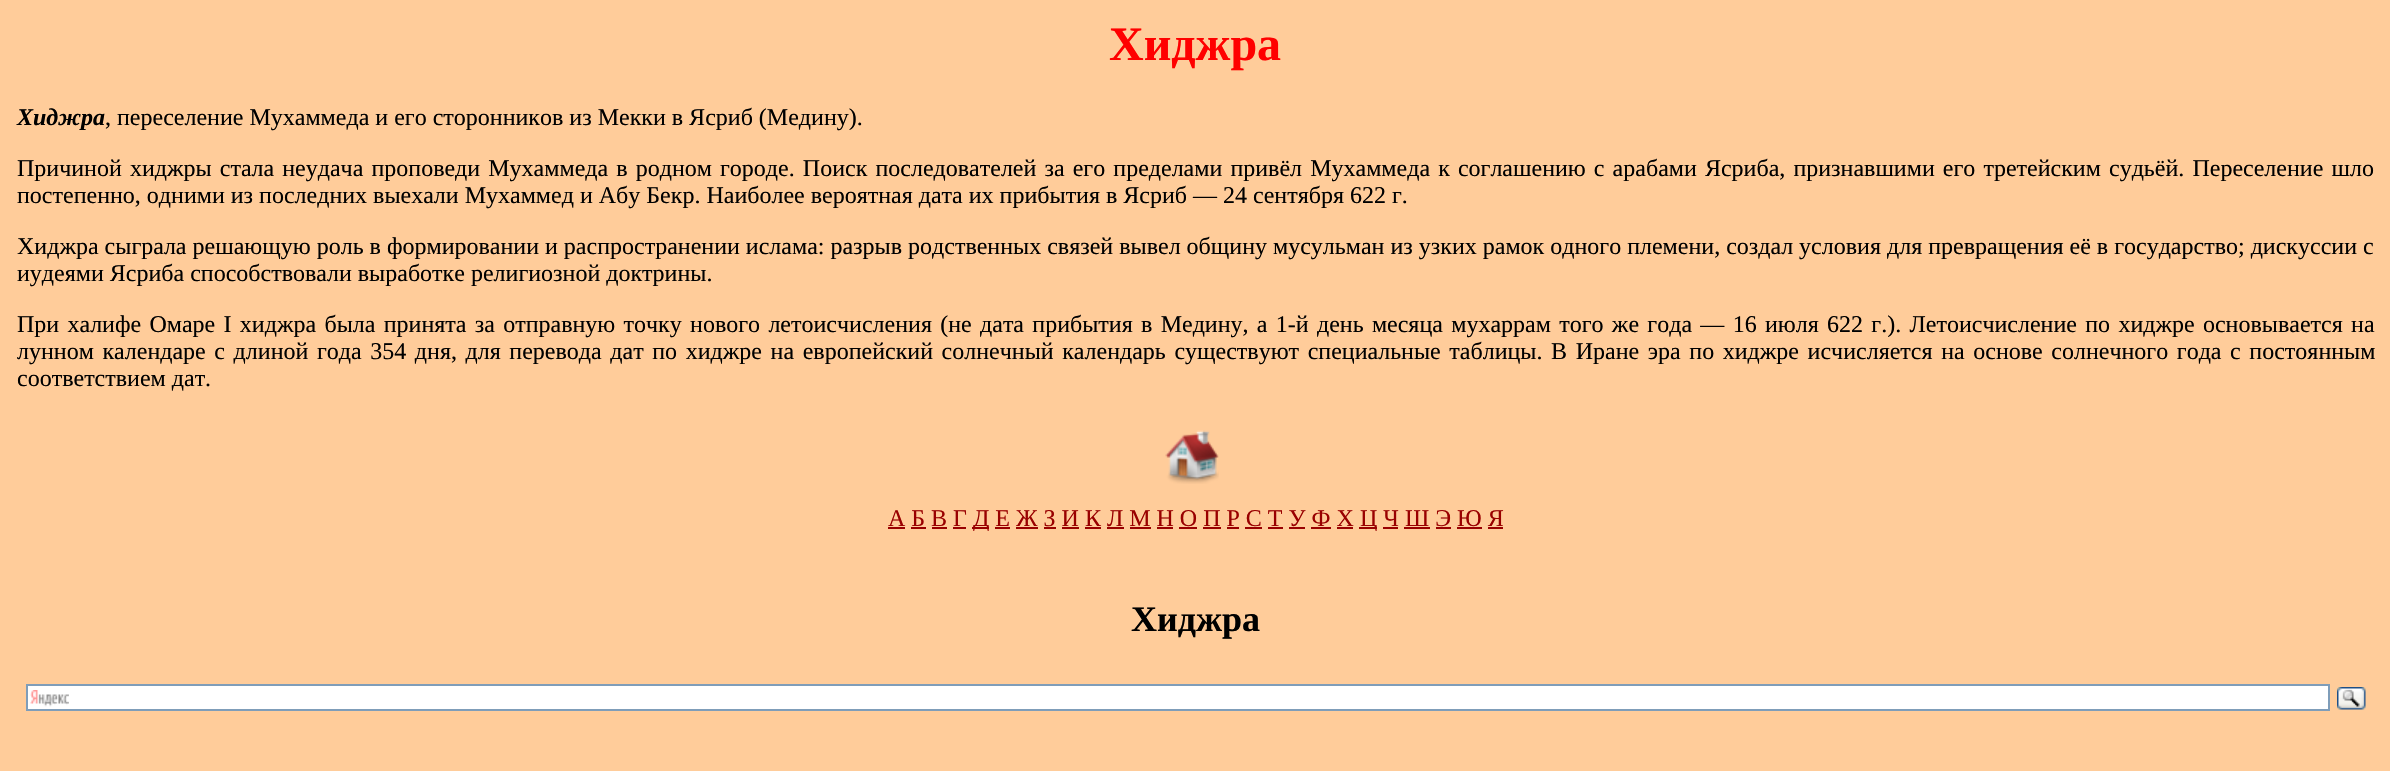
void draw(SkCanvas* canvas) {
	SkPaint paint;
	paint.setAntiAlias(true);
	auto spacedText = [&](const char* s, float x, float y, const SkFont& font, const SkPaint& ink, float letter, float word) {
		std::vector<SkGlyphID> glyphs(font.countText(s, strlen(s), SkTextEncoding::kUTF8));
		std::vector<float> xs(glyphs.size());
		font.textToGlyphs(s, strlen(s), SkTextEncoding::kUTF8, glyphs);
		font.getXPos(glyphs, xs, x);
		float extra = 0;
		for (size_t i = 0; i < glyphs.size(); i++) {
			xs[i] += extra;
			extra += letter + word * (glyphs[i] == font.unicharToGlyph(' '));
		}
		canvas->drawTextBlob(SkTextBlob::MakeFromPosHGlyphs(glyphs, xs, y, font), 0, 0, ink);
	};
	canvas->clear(0xffffcc9a);
	SkFont f1(fontMgr->matchFamilyStyle("Liberation Serif", SkFontStyle::Bold()), 48);
	f1.setSubpixel(true);
	paint.setColor(0xffff0000);
	canvas->drawString("Хиджра", 1109, 60, f1, paint);
	SkFont f2(fontMgr->matchFamilyStyle("Liberation Serif", SkFontStyle::BoldItalic()), 24);
	f2.setSubpixel(true);
	paint.setColor(0xff000000);
	canvas->drawString("Хиджра", 17, 125, f2, paint);
	SkFont f3(fontMgr->matchFamilyStyle("Liberation Serif", SkFontStyle::Normal()), 24);
	f3.setSubpixel(true);
	canvas->drawString(", переселение Мухаммеда и его сторонников из Мекки в Ясриб (Медину).", 105, 125, f3, paint);
	spacedText("Причиной хиджры стала неудача проповеди Мухаммеда в родном городе. Поиск последователей за его пределами привёл Мухаммеда к соглашению с арабами Ясриба, признавшими его третейским судьёй. Переселение шло", 17, 176, f3, paint, 0, 2.1);
	canvas->drawString("постепенно, одними из последних выехали Мухаммед и Абу Бекр. Наиболее вероятная дата их прибытия в Ясриб — 24 сентября 622 г.", 17, 203, f3, paint);
	canvas->drawString("Хиджра сыграла решающую роль в формировании и распространении ислама: разрыв родственных связей вывел общину мусульман из узких рамок одного племени, создал условия для превращения её в государство; дискуссии с", 17, 254, f3, paint);
	canvas->drawString("иудеями Ясриба способствовали выработке религиозной доктрины.", 17, 281, f3, paint);
	spacedText("При халифе Омаре I хиджра была принята за отправную точку нового летоисчисления (не дата прибытия в Медину, а 1-й день месяца мухаррам того же года — 16 июля 622 г.). Летоисчисление по хиджре основывается на", 17, 332, f3, paint, 0, 2.3);
	spacedText("лунном календаре с длиной года 354 дня, для перевода дат по хиджре на европейский солнечный календарь существуют специальные таблицы. В Иране эра по хиджре исчисляется на основе солнечного года с постоянным", 17, 359, f3, paint, 0, 2.6);
	canvas->drawString("соответствием дат.", 17, 386, f3, paint);
	canvas->drawImageRect(SkImages::DeferredFromEncodedData(SkData::MakeFromFileName("img1.png")), SkRect::MakeXYWH(1165, 430, 54, 54), SkSamplingOptions());
	paint.setColor(0xff990000);
	canvas->drawString("А Б В Г", 888, 526, f3, paint);
	canvas->drawRect(SkRect::MakeXYWH(888, 527, 17, 2), paint);
	canvas->drawRect(SkRect::MakeXYWH(972, 527, 17, 2), paint);
	canvas->drawString("Д Е Ж З И К Л М Н О П Р С Т У Ф Х", 973, 526, f3, paint);
	canvas->drawRect(SkRect::MakeXYWH(1359, 527, 18, 2), paint);
	canvas->drawString("Ц Ч Ш Э Ю Я", 1360, 526, f3, paint);
	canvas->drawRect(SkRect::MakeXYWH(911, 527, 15, 2), paint);
	canvas->drawRect(SkRect::MakeXYWH(932, 527, 15, 2), paint);
	canvas->drawRect(SkRect::MakeXYWH(953, 527, 13, 2), paint);
	canvas->drawRect(SkRect::MakeXYWH(995, 527, 15, 2), paint);
	canvas->drawRect(SkRect::MakeXYWH(1016, 527, 22, 2), paint);
	canvas->drawRect(SkRect::MakeXYWH(1044, 527, 12, 2), paint);
	canvas->drawRect(SkRect::MakeXYWH(1062, 527, 17, 2), paint);
	canvas->drawRect(SkRect::MakeXYWH(1085, 527, 16, 2), paint);
	canvas->drawRect(SkRect::MakeXYWH(1107, 527, 17, 2), paint);
	canvas->drawRect(SkRect::MakeXYWH(1130, 527, 21, 2), paint);
	canvas->drawRect(SkRect::MakeXYWH(1157, 527, 16, 2), paint);
	canvas->drawRect(SkRect::MakeXYWH(1179, 527, 18, 2), paint);
	canvas->drawRect(SkRect::MakeXYWH(1203, 527, 18, 2), paint);
	canvas->drawRect(SkRect::MakeXYWH(1227, 527, 12, 2), paint);
	canvas->drawRect(SkRect::MakeXYWH(1245, 527, 17, 2), paint);
	canvas->drawRect(SkRect::MakeXYWH(1268, 527, 15, 2), paint);
	canvas->drawRect(SkRect::MakeXYWH(1289, 527, 16, 2), paint);
	canvas->drawRect(SkRect::MakeXYWH(1311, 527, 20, 2), paint);
	canvas->drawRect(SkRect::MakeXYWH(1337, 527, 16, 2), paint);
	canvas->drawRect(SkRect::MakeXYWH(1383, 527, 15, 2), paint);
	canvas->drawRect(SkRect::MakeXYWH(1404, 527, 26, 2), paint);
	canvas->drawRect(SkRect::MakeXYWH(1436, 527, 15, 2), paint);
	canvas->drawRect(SkRect::MakeXYWH(1457, 527, 25, 2), paint);
	canvas->drawRect(SkRect::MakeXYWH(1488, 527, 15, 2), paint);
	SkFont f4(fontMgr->matchFamilyStyle("Liberation Serif", SkFontStyle::Bold()), 36);
	f4.setSubpixel(true);
	paint.setColor(0xff000000);
	canvas->drawString("Хиджра", 1131, 631, f4, paint);
	paint.setColor(0xffffffff);
	canvas->drawRect(SkRect::MakeXYWH(28, 686, 2300, 23), paint);
	canvas->drawImageRect(SkImages::DeferredFromEncodedData(SkData::MakeFromFileName("img2.png")), SkRect::MakeXYWH(30, 690, 39, 17), SkSamplingOptions());
	paint.setStroke(true);
	paint.setStrokeWidth(2);
	paint.setColor(0xff7f9db9);
	canvas->drawRect(SkRect::MakeXYWH(27, 685, 2302, 25), paint);
	canvas->drawImageRect(SkImages::DeferredFromEncodedData(SkData::MakeFromFileName("img3.png")), SkRect::MakeXYWH(2337, 687, 29, 23), SkSamplingOptions());
}
